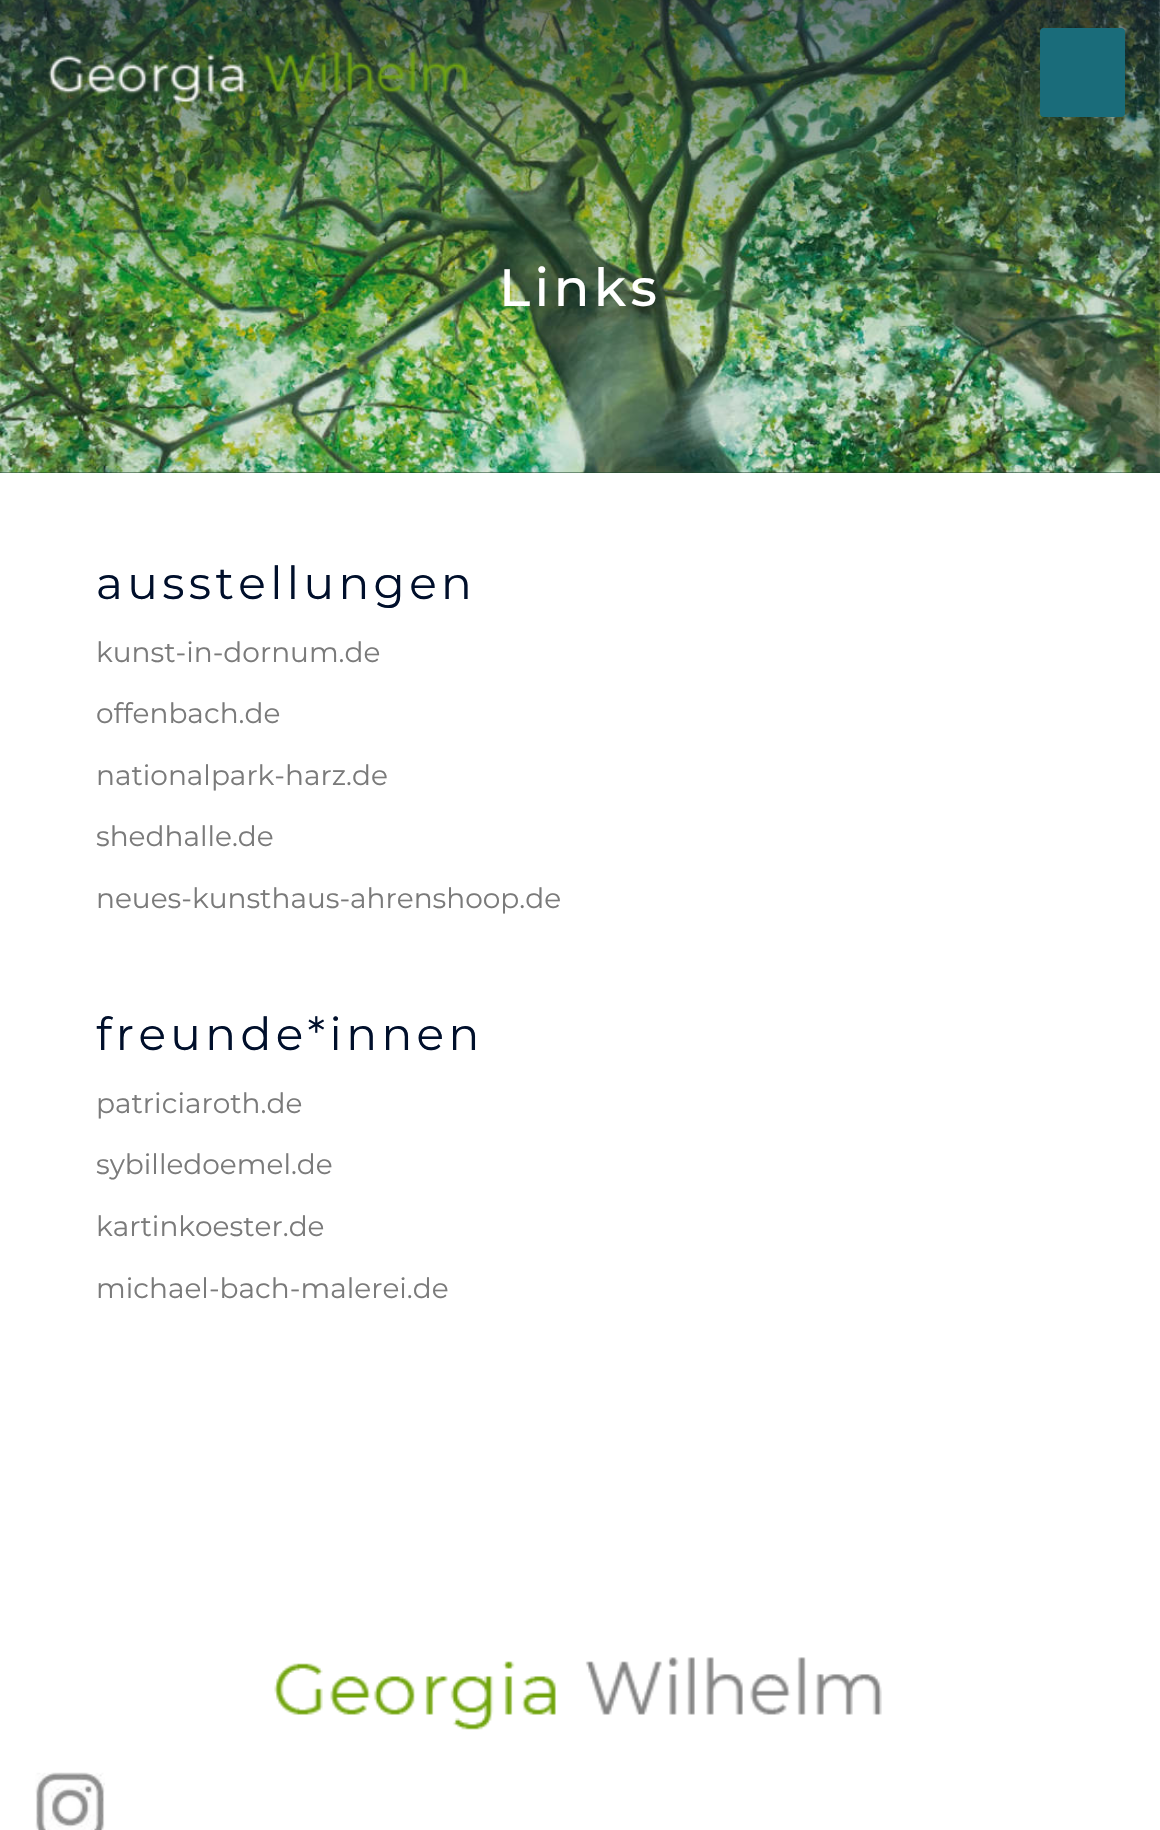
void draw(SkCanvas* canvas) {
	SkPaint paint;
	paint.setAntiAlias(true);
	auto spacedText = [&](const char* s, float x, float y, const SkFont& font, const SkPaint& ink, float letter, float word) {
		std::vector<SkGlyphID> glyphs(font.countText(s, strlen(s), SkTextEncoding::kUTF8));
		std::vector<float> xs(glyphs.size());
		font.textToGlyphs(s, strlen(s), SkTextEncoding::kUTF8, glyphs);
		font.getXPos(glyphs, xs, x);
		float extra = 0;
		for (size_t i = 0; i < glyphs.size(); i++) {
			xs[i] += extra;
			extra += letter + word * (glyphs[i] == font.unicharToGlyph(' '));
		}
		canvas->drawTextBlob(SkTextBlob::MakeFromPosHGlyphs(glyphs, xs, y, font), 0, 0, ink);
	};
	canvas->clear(0xffffffff);
	paint.setColor(0xff1d3c2d);
	canvas->drawRect(SkRect::MakeXYWH(0, 472, 1160, 1), paint);
	canvas->drawImageRect(SkImages::DeferredFromEncodedData(SkData::MakeFromFileName("img2.png")), SkRect::MakeXYWH(0, 0, 1160, 473), SkSamplingOptions());
	{
		const SkColor colors[] = {0x990f232f, 0x211a7a1a};
		const float stops[] = {0, 0.74};
		const SkPoint ends[] = {{580, 0}, {580, 473}};
		paint.setShader(SkGradientShader::MakeLinear(ends, colors, stops, 2, SkTileMode::kClamp));
		paint.setAlpha(255);
	}
	canvas->drawRect(SkRect::MakeXYWH(0, 0, 1160, 473), paint);
	canvas->drawImageRect(SkImages::DeferredFromEncodedData(SkData::MakeFromFileName("img1.png")), SkRect::MakeXYWH(48, 51, 421, 52), SkSamplingOptions());
	paint.setShader(nullptr);
	paint.setColor(0xff1a6c7a);
	canvas->drawRoundRect(SkRect::MakeXYWH(1042, 30, 81, 85), 2, 2, paint);
	paint.setStroke(true);
	paint.setStrokeWidth(4);
	canvas->drawRoundRect(SkRect::MakeXYWH(1042, 30, 81, 85), 2, 2, paint);
	SkFont f1(fontMgr->matchFamilyStyle("Montserrat", SkFontStyle(500, SkFontStyle::kNormal_Width, SkFontStyle::kUpright_Slant)), 52.5);
	f1.setSubpixel(true);
	paint.setStroke(false);
	paint.setColor(0xffffffff);
	spacedText("Links", 499, 306, f1, paint, 4.4, 0);
	SkFont f2(fontMgr->matchFamilyStyle("Montserrat", SkFontStyle::Normal()), 45.5);
	f2.setSubpixel(true);
	paint.setColor(0xff000f2b);
	spacedText("ausstellungen", 96, 599, f2, paint, 4.4, 0);
	SkFont f3(fontMgr->matchFamilyStyle("Montserrat", SkFontStyle::Normal()), 28);
	f3.setSubpixel(true);
	paint.setColor(0xff7a7a7a);
	canvas->drawString("kunst-in-dornum.de", 96, 662, f3, paint);
	canvas->drawString("offenbach.de", 96, 723, f3, paint);
	canvas->drawString("nationalpark-harz.de", 96, 785, f3, paint);
	canvas->drawString("shedhalle.de", 96, 846, f3, paint);
	canvas->drawString("neues-kunsthaus-ahrenshoop.de", 96, 908, f3, paint);
	paint.setColor(0xff000f2b);
	spacedText("freunde*innen", 96, 1050, f2, paint, 4.4, 0);
	paint.setColor(0xff7a7a7a);
	canvas->drawString("patriciaroth.de", 96, 1113, f3, paint);
	canvas->drawString("sybilledoemel.de", 96, 1174, f3, paint);
	canvas->drawString("kartinkoester.de", 96, 1236, f3, paint);
	canvas->drawString("michael-bach-malerei.de", 96, 1298, f3, paint);
	canvas->drawImageRect(SkImages::DeferredFromEncodedData(SkData::MakeFromFileName("img3.png")), SkRect::MakeXYWH(274, 1657, 608, 73), SkSamplingOptions());
	canvas->drawImageRect(SkImages::DeferredFromEncodedData(SkData::MakeFromFileName("img4.png")), SkRect::MakeXYWH(35, 1772, 70, 58), SkSamplingOptions());
}
